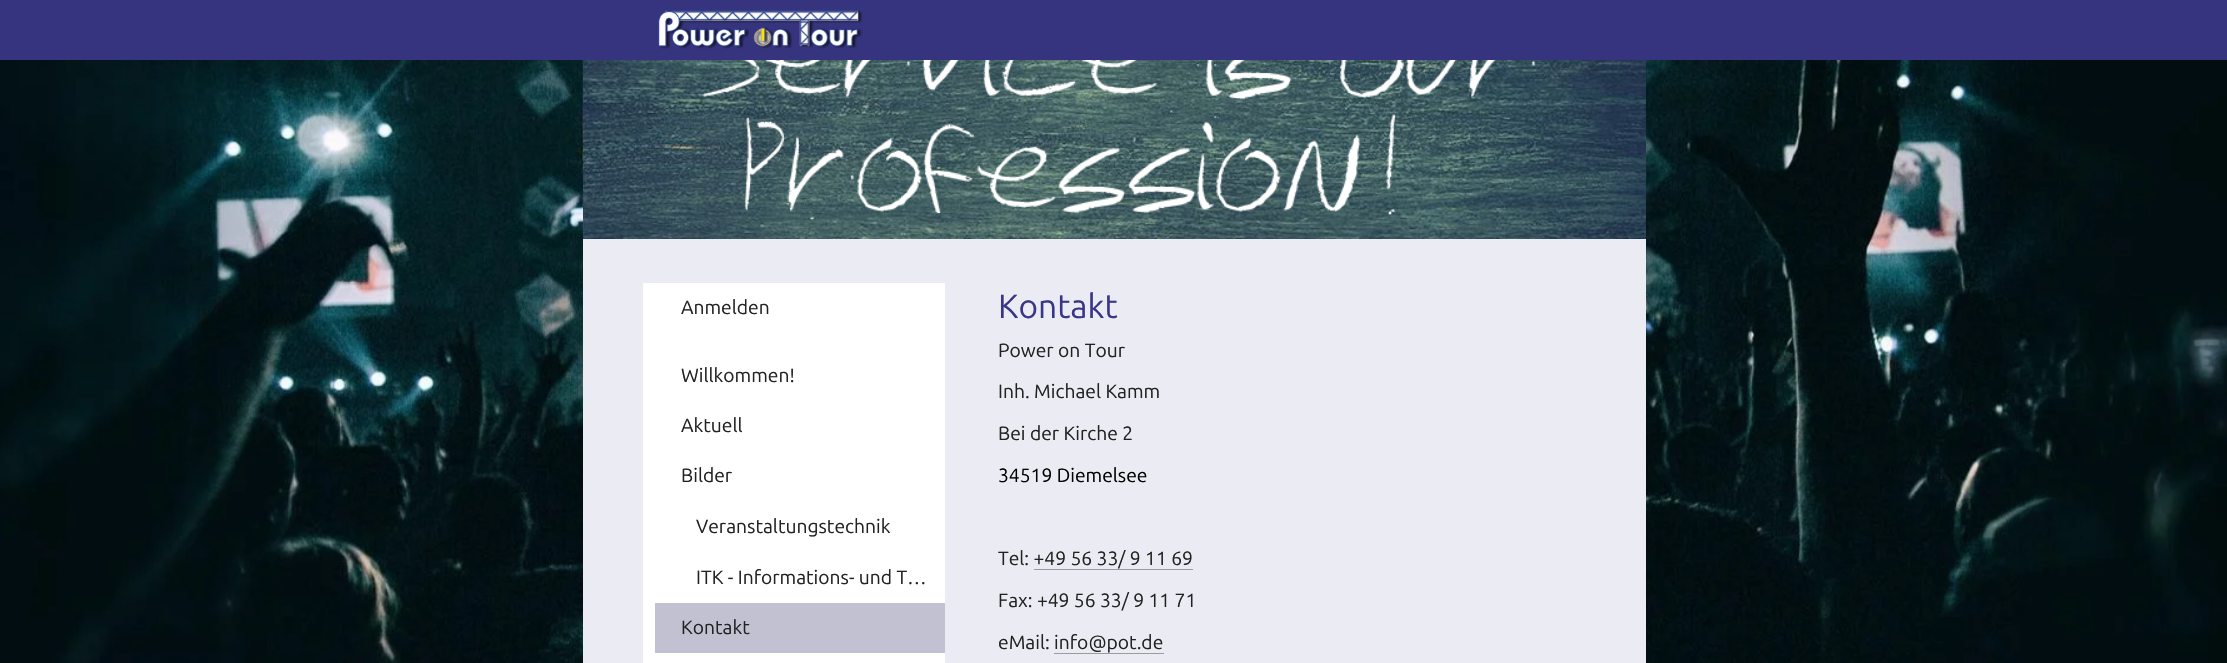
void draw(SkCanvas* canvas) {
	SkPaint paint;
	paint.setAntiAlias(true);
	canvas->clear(0xffffffff);
	canvas->drawImageRect(SkImages::DeferredFromEncodedData(SkData::MakeFromFileName("img1.png")), SkRect::MakeXYWH(0, 60, 2227, 603), SkSamplingOptions());
	paint.setColor(0xff37347f);
	canvas->drawRect(SkRect::MakeXYWH(0, 0, 2227, 60), paint);
	canvas->drawImageRect(SkImages::DeferredFromEncodedData(SkData::MakeFromFileName("img2.png")), SkRect::MakeXYWH(658, 10, 205, 39), SkSamplingOptions());
	canvas->drawImageRect(SkImages::DeferredFromEncodedData(SkData::MakeFromFileName("img3.png")), SkRect::MakeXYWH(583, 60, 1063, 179), SkSamplingOptions());
	canvas->drawImageRect(SkImages::DeferredFromEncodedData(SkData::MakeFromFileName("img4.png")), SkRect::MakeXYWH(702, 60, 834, 155), SkSamplingOptions());
	paint.setColor(0xffebebf3);
	canvas->drawRect(SkRect::MakeXYWH(583, 239, 1063, 424), paint);
	paint.setColor(0xffffffff);
	canvas->drawRect(SkRect::MakeXYWH(643, 283, 302, 380), paint);
	SkFont f1(fontMgr->matchFamilyStyle("Ubuntu", SkFontStyle::Normal()), 19.25);
	f1.setSubpixel(true);
	paint.setColor(0xff222222);
	canvas->drawString("Anmelden", 681, 314, f1, paint);
	canvas->drawString("Willkommen!", 681, 382, f1, paint);
	canvas->drawString("Aktuell", 681, 432, f1, paint);
	canvas->drawString("Bilder", 681, 482, f1, paint);
	canvas->drawString("Veranstaltungstechnik", 696, 533, f1, paint);
	canvas->drawString("ITK - Informations- und T…", 696, 584, f1, paint);
	paint.setColor(0xffc2c1d2);
	canvas->drawRect(SkRect::MakeXYWH(655, 603, 290, 50), paint);
	paint.setColor(0xff222222);
	canvas->drawString("Kontakt", 681, 634, f1, paint);
	SkFont f2(fontMgr->matchFamilyStyle("Ubuntu", SkFontStyle::Normal()), 33.5);
	f2.setSubpixel(true);
	paint.setColor(0xff393689);
	canvas->drawString("Kontakt", 998, 318, f2, paint);
	paint.setColor(0xff222222);
	canvas->drawString("Power on Tour", 998, 357, f1, paint);
	canvas->drawString("Inh. Michael Kamm", 998, 398, f1, paint);
	canvas->drawString("Bei der Kirche 2", 998, 440, f1, paint);
	paint.setColor(0xff000000);
	canvas->drawString("34519 Diemelsee", 998, 482, f1, paint);
	paint.setColor(0xff222222);
	canvas->drawString("Tel: +49 56 33/ 9 11 69", 998, 565, f1, paint);
	paint.setColor(0xff9b9b9f);
	canvas->drawRect(SkRect::MakeXYWH(1034, 569, 159, 1), paint);
	paint.setColor(0xff222222);
	canvas->drawString("Fax: +49 56 33/ 9 11 71", 998, 607, f1, paint);
	canvas->drawString("eMail: info@pot.de", 998, 649, f1, paint);
	paint.setColor(0xff9b9b9f);
	canvas->drawRect(SkRect::MakeXYWH(1054, 653, 110, 1), paint);
}
